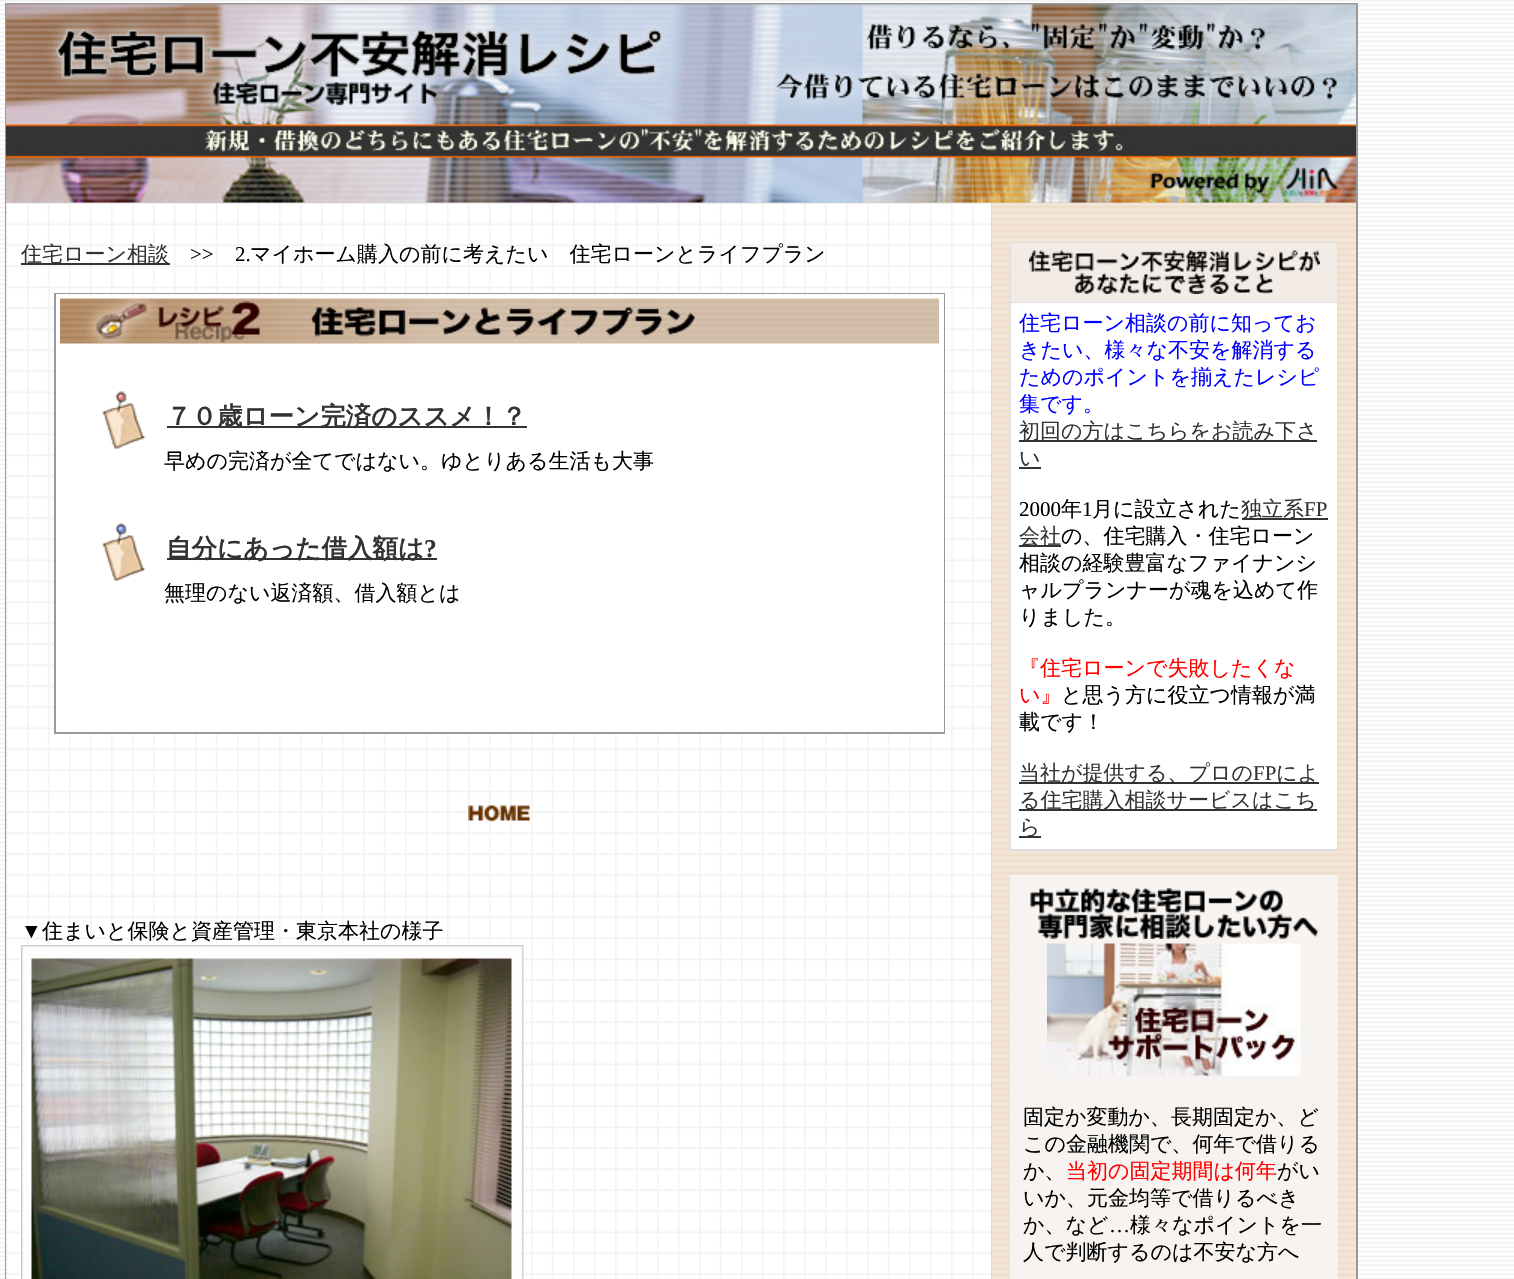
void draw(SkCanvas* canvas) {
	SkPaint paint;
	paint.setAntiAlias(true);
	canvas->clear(0xffffffff);
	canvas->drawImageRect(SkImages::DeferredFromEncodedData(SkData::MakeFromFileName("img1.png")), SkRect::MakeXYWH(0, 0, 1514, 1279), SkSamplingOptions());
	paint.setColor(0xff999999);
	canvas->drawRect(SkRect::MakeXYWH(5, 3, 1353, 1276), paint);
	canvas->drawImageRect(SkImages::DeferredFromEncodedData(SkData::MakeFromFileName("img3.png")), SkRect::MakeXYWH(6, 202, 986, 1077), SkSamplingOptions());
	canvas->drawImageRect(SkImages::DeferredFromEncodedData(SkData::MakeFromFileName("img9.png")), SkRect::MakeXYWH(991, 202, 365, 1077), SkSamplingOptions());
	canvas->drawImageRect(SkImages::DeferredFromEncodedData(SkData::MakeFromFileName("img2.png")), SkRect::MakeXYWH(6, 4, 1350, 199), SkSamplingOptions());
	paint.setColor(0xff333333);
	canvas->drawRect(SkRect::MakeXYWH(21, 263, 149, 2), paint);
	SkFont f1(fontMgr->matchFamilyStyle("WenQuanYi Zen Hei", SkFontStyle(500, SkFontStyle::kNormal_Width, SkFontStyle::kUpright_Slant)), 21);
	f1.setSubpixel(true);
	canvas->drawString("住宅ローン相談", 21, 261, f1, paint);
	SkFont f2(fontMgr->matchFamilyStyle("Liberation Serif", SkFontStyle::Normal()), 21);
	f2.setSubpixel(true);
	paint.setColor(0xff000000);
	canvas->drawString(">>", 190, 261, f2, paint);
	canvas->drawString("2.", 235, 261, f2, paint);
	canvas->drawString("マイホーム購入の前に考えたい　住宅ローンとライフプラン", 250, 261, f1, paint);
	paint.setColor(0xff999999);
	canvas->drawRect(SkRect::MakeXYWH(54, 293, 891, 441), paint);
	paint.setColor(0xffffffff);
	canvas->drawRect(SkRect::MakeXYWH(56, 294, 888, 438), paint);
	canvas->drawImageRect(SkImages::DeferredFromEncodedData(SkData::MakeFromFileName("img4.png")), SkRect::MakeXYWH(60, 298, 879, 46), SkSamplingOptions());
	canvas->drawImageRect(SkImages::DeferredFromEncodedData(SkData::MakeFromFileName("img5.png")), SkRect::MakeXYWH(102, 391, 44, 58), SkSamplingOptions());
	paint.setColor(0xff333333);
	canvas->drawRect(SkRect::MakeXYWH(167, 426, 360, 2), paint);
	SkFont f3(fontMgr->matchFamilyStyle("WenQuanYi Zen Hei", SkFontStyle::Bold()), 25.5);
	f3.setSubpixel(true);
	canvas->drawString("７０歳ローン完済のススメ！？", 166, 425, f3, paint);
	paint.setColor(0xff000000);
	canvas->drawString("早めの完済が全てではない。ゆとりある生活も大事", 164, 468, f1, paint);
	canvas->drawImageRect(SkImages::DeferredFromEncodedData(SkData::MakeFromFileName("img6.png")), SkRect::MakeXYWH(102, 523, 44, 58), SkSamplingOptions());
	paint.setColor(0xff333333);
	canvas->drawRect(SkRect::MakeXYWH(167, 558, 270, 2), paint);
	canvas->drawString("自分にあった借入額は", 166, 557, f3, paint);
	SkFont f4(fontMgr->matchFamilyStyle("Liberation Serif", SkFontStyle::Bold()), 25.5);
	f4.setSubpixel(true);
	canvas->drawString("?", 424, 557, f4, paint);
	paint.setColor(0xff000000);
	canvas->drawString("無理のない返済額、借入額とは", 164, 600, f1, paint);
	canvas->drawImageRect(SkImages::DeferredFromEncodedData(SkData::MakeFromFileName("img7.png")), SkRect::MakeXYWH(468, 805, 62, 17), SkSamplingOptions());
	canvas->drawString("▼", 21, 938, f2, paint);
	canvas->drawString("住まいと保険と資産管理・東京本社の様子", 42, 938, f1, paint);
	canvas->drawImageRect(SkImages::DeferredFromEncodedData(SkData::MakeFromFileName("img8.png")), SkRect::MakeXYWH(21, 945, 503, 334), SkSamplingOptions());
	paint.setColor(0xffe0dfe3);
	canvas->drawRect(SkRect::MakeXYWH(1010, 242, 328, 609), paint);
	paint.setColor(0xfff2ebe6);
	canvas->drawRect(SkRect::MakeXYWH(1011, 243, 326, 59), paint);
	canvas->drawImageRect(SkImages::DeferredFromEncodedData(SkData::MakeFromFileName("img10.png")), SkRect::MakeXYWH(1029, 250, 291, 44), SkSamplingOptions());
	paint.setColor(0xffffffff);
	canvas->drawRect(SkRect::MakeXYWH(1011, 303, 326, 546), paint);
	paint.setColor(0xff0000ff);
	canvas->drawString("住宅ローン相談の前に知ってお", 1019, 330, f1, paint);
	canvas->drawString("きたい、様々な不安を解消する", 1019, 357, f1, paint);
	canvas->drawString("ためのポイントを揃えたレシピ", 1019, 384, f1, paint);
	canvas->drawString("集です。", 1019, 411, f1, paint);
	paint.setColor(0xff333333);
	canvas->drawRect(SkRect::MakeXYWH(1019, 440, 298, 2), paint);
	canvas->drawString("初回の方はこちらをお読み下さ", 1019, 438, f1, paint);
	canvas->drawString("い", 1019, 465, f1, paint);
	canvas->drawRect(SkRect::MakeXYWH(1019, 467, 22, 2), paint);
	paint.setColor(0xff000000);
	canvas->drawString("2000", 1019, 516, f2, paint);
	canvas->drawString("年", 1061, 516, f1, paint);
	canvas->drawString("1", 1082, 516, f2, paint);
	canvas->drawString("月に設立された", 1092, 516, f1, paint);
	paint.setColor(0xff333333);
	canvas->drawRect(SkRect::MakeXYWH(1242, 518, 86, 2), paint);
	canvas->drawString("独立系", 1241, 516, f1, paint);
	canvas->drawString("FP", 1304, 516, f2, paint);
	canvas->drawRect(SkRect::MakeXYWH(1019, 545, 42, 2), paint);
	canvas->drawString("会社", 1019, 543, f1, paint);
	paint.setColor(0xff000000);
	canvas->drawString("の、住宅購入・住宅ローン", 1061, 543, f1, paint);
	canvas->drawString("相談の経験豊富なファイナンシ", 1019, 570, f1, paint);
	canvas->drawString("ャルプランナーが魂を込めて作", 1019, 597, f1, paint);
	canvas->drawString("りました。", 1019, 624, f1, paint);
	paint.setColor(0xffff0000);
	canvas->drawString("『住宅ローンで失敗したくな", 1019, 675, f1, paint);
	canvas->drawString("い』", 1019, 702, f1, paint);
	paint.setColor(0xff000000);
	canvas->drawString("と思う方に役立つ情報が満", 1061, 702, f1, paint);
	canvas->drawString("載です！", 1019, 729, f1, paint);
	paint.setColor(0xff333333);
	canvas->drawRect(SkRect::MakeXYWH(1019, 782, 300, 2), paint);
	canvas->drawString("当社が提供する、プロの", 1019, 780, f1, paint);
	canvas->drawString("FP", 1253, 780, f2, paint);
	canvas->drawString("によ", 1276, 780, f1, paint);
	canvas->drawRect(SkRect::MakeXYWH(1019, 809, 298, 2), paint);
	canvas->drawString("る住宅購入相談サービスはこち", 1019, 807, f1, paint);
	canvas->drawRect(SkRect::MakeXYWH(1019, 836, 22, 2), paint);
	canvas->drawString("ら", 1019, 834, f1, paint);
	paint.setColor(0xfff7f3f0);
	canvas->drawRect(SkRect::MakeXYWH(1010, 875, 328, 404), paint);
	canvas->drawImageRect(SkImages::DeferredFromEncodedData(SkData::MakeFromFileName("img11.png")), SkRect::MakeXYWH(1030, 888, 289, 51), SkSamplingOptions());
	canvas->drawImageRect(SkImages::DeferredFromEncodedData(SkData::MakeFromFileName("img12.png")), SkRect::MakeXYWH(1047, 943, 254, 133), SkSamplingOptions());
	paint.setColor(0xff000000);
	canvas->drawString("固定か変動か、長期固定か、ど", 1023, 1124, f1, paint);
	canvas->drawString("この金融機関で、何年で借りる", 1023, 1151, f1, paint);
	canvas->drawString("か、", 1023, 1178, f1, paint);
	paint.setColor(0xffff0000);
	canvas->drawString("当初の固定期間は何年", 1066, 1178, f1, paint);
	paint.setColor(0xff000000);
	canvas->drawString("がい", 1277, 1178, f1, paint);
	canvas->drawString("いか、元金均等で借りるべき", 1023, 1205, f1, paint);
	canvas->drawString("か、など", 1023, 1232, f1, paint);
	canvas->drawString("…", 1109, 1232, f2, paint);
	canvas->drawString("様々なポイントを一", 1130, 1232, f1, paint);
	canvas->drawString("人で判断するのは不安な方へ", 1023, 1259, f1, paint);
}
